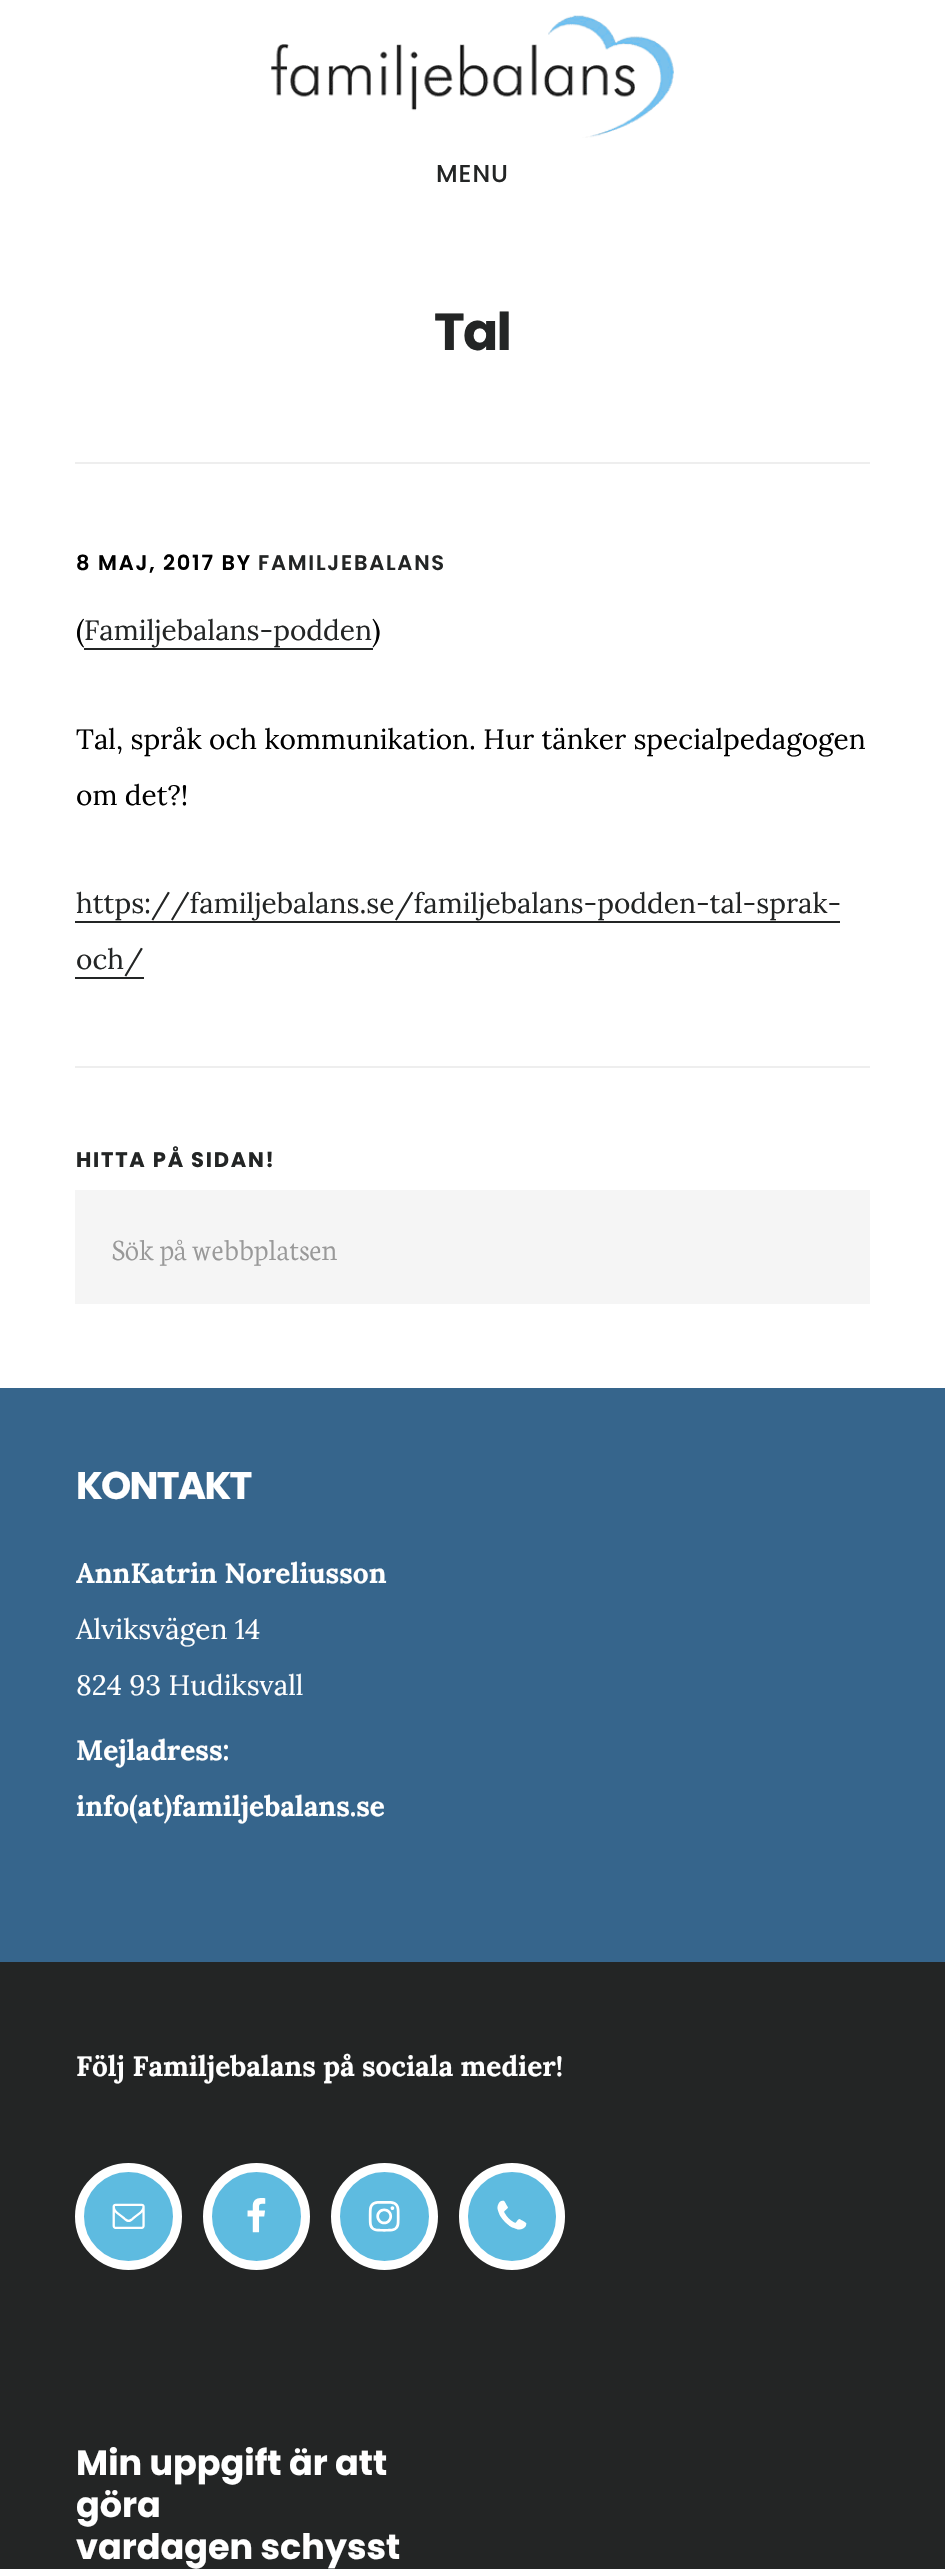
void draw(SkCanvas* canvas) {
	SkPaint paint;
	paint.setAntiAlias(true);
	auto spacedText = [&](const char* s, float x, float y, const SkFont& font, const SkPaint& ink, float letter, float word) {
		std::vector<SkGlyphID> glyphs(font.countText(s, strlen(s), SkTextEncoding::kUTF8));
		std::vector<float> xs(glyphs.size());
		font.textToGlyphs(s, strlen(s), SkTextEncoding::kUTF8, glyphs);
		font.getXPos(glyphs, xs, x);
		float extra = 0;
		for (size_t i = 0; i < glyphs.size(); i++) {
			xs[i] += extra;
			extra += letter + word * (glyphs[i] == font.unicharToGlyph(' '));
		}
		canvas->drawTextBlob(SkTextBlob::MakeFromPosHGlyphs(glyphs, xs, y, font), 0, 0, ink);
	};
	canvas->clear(0xffffffff);
	canvas->drawImageRect(SkImages::DeferredFromEncodedData(SkData::MakeFromFileName("img1.png")), SkRect::MakeXYWH(271, 15, 403, 123), SkSamplingOptions());
	SkFont f1(fontMgr->matchFamilyStyle("Poppins", SkFontStyle(500, SkFontStyle::kNormal_Width, SkFontStyle::kUpright_Slant)), 24.5);
	f1.setSubpixel(true);
	paint.setColor(0xff232525);
	spacedText("MENU", 436, 182, f1, paint, 1, 0);
	paint.setColor(0xffeeeeee);
	canvas->drawRect(SkRect::MakeXYWH(75, 462, 795, 2), paint);
	SkFont f2(fontMgr->matchFamilyStyle("Poppins", SkFontStyle::Bold()), 52);
	f2.setSubpixel(true);
	paint.setColor(0xff232525);
	spacedText("Tal", 434, 350, f2, paint, -1.75, 0);
	paint.setColor(0xffeeeeee);
	canvas->drawRect(SkRect::MakeXYWH(75, 1066, 795, 2), paint);
	SkFont f3(fontMgr->matchFamilyStyle("Poppins", SkFontStyle(600, SkFontStyle::kNormal_Width, SkFontStyle::kUpright_Slant)), 21);
	f3.setSubpixel(true);
	paint.setColor(0xff000000);
	spacedText("8 MAJ, 2017 BY", 76, 570, f3, paint, 1.75, 0);
	paint.setColor(0xff232525);
	spacedText("FAMILJEBALANS", 258, 570, f3, paint, 1.75, 0);
	SkFont f4(fontMgr->matchFamilyStyle("Lora", SkFontStyle::Normal()), 28);
	f4.setSubpixel(true);
	paint.setColor(0xff000000);
	canvas->drawString("(", 76, 640, f4, paint);
	paint.setColor(0xff232525);
	canvas->drawString("Familjebalans-podden", 84, 640, f4, paint);
	canvas->drawRect(SkRect::MakeXYWH(84, 648, 289, 2), paint);
	paint.setColor(0xff000000);
	canvas->drawString(")", 372, 640, f4, paint);
	canvas->drawString("Tal, språk och kommunikation. Hur tänker specialpedagogen", 76, 749, f4, paint);
	canvas->drawString("om det?!", 76, 805, f4, paint);
	paint.setColor(0xff232525);
	canvas->drawString("https://familjebalans.se/familjebalans-podden-tal-sprak-", 76, 913, f4, paint);
	canvas->drawRect(SkRect::MakeXYWH(75, 921, 765, 2), paint);
	canvas->drawString("och/", 76, 969, f4, paint);
	canvas->drawRect(SkRect::MakeXYWH(75, 977, 69, 2), paint);
	SkFont f5(fontMgr->matchFamilyStyle("Poppins", SkFontStyle::Bold()), 21);
	f5.setSubpixel(true);
	spacedText("HITTA PÅ SIDAN!", 76, 1167, f5, paint, 1.75, 0);
	paint.setColor(0xfff5f5f5);
	canvas->drawRect(SkRect::MakeXYWH(75, 1190, 795, 114), paint);
	SkFont f6(fontMgr->matchFamilyStyle("Neuton", SkFontStyle(300, SkFontStyle::kNormal_Width, SkFontStyle::kUpright_Slant)), 31.5);
	f6.setSubpixel(true);
	paint.setColor(0xff999999);
	canvas->drawString("Sök på webbplatsen", 112, 1260, f6, paint);
	paint.setColor(0xff232525);
	canvas->drawRect(SkRect::MakeXYWH(0, 1962, 945, 607), paint);
	paint.setColor(0xff36658c);
	canvas->drawRect(SkRect::MakeXYWH(0, 1388, 945, 574), paint);
	SkFont f7(fontMgr->matchFamilyStyle("Poppins", SkFontStyle::Bold()), 38.5);
	f7.setSubpixel(true);
	paint.setColor(0xffffffff);
	spacedText("KONTAKT", 76, 1499, f7, paint, -1.75, 0);
	SkFont f8(fontMgr->matchFamilyStyle("Lora", SkFontStyle::Bold()), 28);
	f8.setSubpixel(true);
	canvas->drawString("AnnKatrin Noreliusson", 76, 1583, f8, paint);
	canvas->drawString("Alviksvägen 14", 76, 1639, f4, paint);
	canvas->drawString("824 93 Hudiksvall", 76, 1695, f4, paint);
	canvas->drawString("Mejladress:", 76, 1760, f8, paint);
	canvas->drawString("info(at)familjebalans.se", 76, 1816, f8, paint);
	canvas->drawString("Följ Familjebalans på sociala medier!", 76, 2076, f8, paint);
	paint.setColor(0xff5ebbe0);
	canvas->drawCircle(128.5, 2216.5, 49, paint);
	paint.setStroke(true);
	paint.setStrokeWidth(9);
	paint.setColor(0xffffffff);
	canvas->drawCircle(128.5, 2216.5, 49, paint);
	canvas->drawImageRect(SkImages::DeferredFromEncodedData(SkData::MakeFromFileName("img2.png")), SkRect::MakeXYWH(112, 2203, 33, 26), SkSamplingOptions());
	paint.setStroke(false);
	paint.setColor(0xff5ebbe0);
	canvas->drawCircle(256.5, 2216.5, 49, paint);
	paint.setStroke(true);
	paint.setColor(0xffffffff);
	canvas->drawCircle(256.5, 2216.5, 49, paint);
	canvas->drawImageRect(SkImages::DeferredFromEncodedData(SkData::MakeFromFileName("img3.png")), SkRect::MakeXYWH(247, 2198, 19, 35), SkSamplingOptions());
	paint.setStroke(false);
	paint.setColor(0xff5ebbe0);
	canvas->drawCircle(384.5, 2216.5, 49, paint);
	paint.setStroke(true);
	paint.setColor(0xffffffff);
	canvas->drawCircle(384.5, 2216.5, 49, paint);
	canvas->drawImageRect(SkImages::DeferredFromEncodedData(SkData::MakeFromFileName("img4.png")), SkRect::MakeXYWH(368, 2201, 32, 31), SkSamplingOptions());
	paint.setStroke(false);
	paint.setColor(0xff5ebbe0);
	canvas->drawRoundRect(SkRect::MakeXYWH(463.5, 2167.5, 97, 98), 48.5, 48.5, paint);
	paint.setStroke(true);
	paint.setColor(0xffffffff);
	canvas->drawRoundRect(SkRect::MakeXYWH(463.5, 2167.5, 97, 98), 48.5, 48.5, paint);
	canvas->drawImageRect(SkImages::DeferredFromEncodedData(SkData::MakeFromFileName("img5.png")), SkRect::MakeXYWH(497, 2200, 30, 30), SkSamplingOptions());
	SkFont f9(fontMgr->matchFamilyStyle("Poppins", SkFontStyle::Bold()), 35);
	f9.setSubpixel(true);
	paint.setStroke(false);
	canvas->drawString("Min uppgift är att", 76, 2475, f9, paint);
	canvas->drawString("göra", 76, 2517, f9, paint);
	canvas->drawString("vardagen schysst", 76, 2559, f9, paint);
}
